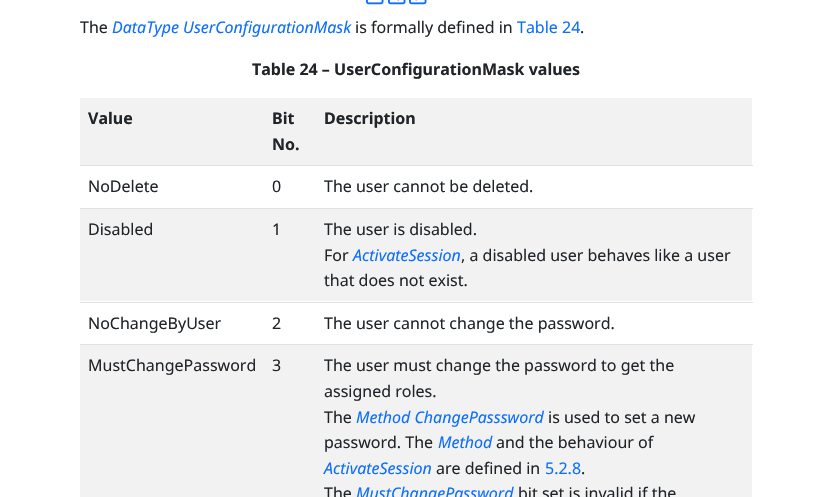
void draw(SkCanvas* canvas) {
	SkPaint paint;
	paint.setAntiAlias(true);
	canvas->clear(0xffffffff);
	canvas->drawImageRect(SkImages::DeferredFromEncodedData(SkData::MakeFromFileName("img1.png")), SkRect::MakeXYWH(366, 0, 18, 5), SkSamplingOptions());
	canvas->drawImageRect(SkImages::DeferredFromEncodedData(SkData::MakeFromFileName("img2.png")), SkRect::MakeXYWH(388, 0, 18, 5), SkSamplingOptions());
	canvas->drawImageRect(SkImages::DeferredFromEncodedData(SkData::MakeFromFileName("img3.png")), SkRect::MakeXYWH(409, 0, 18, 5), SkSamplingOptions());
	SkFont f1(fontMgr->matchFamilyStyle("Noto Sans", SkFontStyle::Normal()), 16);
	f1.setSubpixel(true);
	paint.setColor(0xff212529);
	canvas->drawString("The", 80, 33, f1, paint);
	SkFont f2(fontMgr->matchFamilyStyle("Noto Sans", SkFontStyle::Italic()), 16);
	f2.setSubpixel(true);
	paint.setColor(0xff0d6efd);
	canvas->drawString("DataType UserConfigurationMask", 112, 33, f2, paint);
	paint.setColor(0xff212529);
	canvas->drawString("is formally defined in", 355, 33, f1, paint);
	paint.setColor(0xff0d6efd);
	canvas->drawString("Table 24", 517, 33, f1, paint);
	paint.setColor(0xff212529);
	canvas->drawString(".", 580, 33, f1, paint);
	SkFont f3(fontMgr->matchFamilyStyle("Noto Sans", SkFontStyle::Bold()), 16);
	f3.setSubpixel(true);
	canvas->drawString("Table 24 – UserConfigurationMask values", 252, 75, f3, paint);
	paint.setColor(0xfff2f2f2);
	canvas->drawRect(SkRect::MakeXYWH(80, 98, 672, 67), paint);
	paint.setColor(0xff212529);
	canvas->drawString("Value", 88, 124, f3, paint);
	canvas->drawString("Bit", 272, 124, f3, paint);
	canvas->drawString("No.", 272, 150, f3, paint);
	paint.setColor(0xffdee2e6);
	canvas->drawRect(SkRect::MakeXYWH(80, 165, 673, 1), paint);
	paint.setColor(0xff212529);
	canvas->drawString("Description", 324, 124, f3, paint);
	canvas->drawString("NoDelete", 88, 192, f1, paint);
	canvas->drawString("0", 272, 192, f1, paint);
	paint.setColor(0xffdee2e6);
	canvas->drawRect(SkRect::MakeXYWH(80, 208, 673, 1), paint);
	paint.setColor(0xff212529);
	canvas->drawString("The user cannot be deleted.", 324, 192, f1, paint);
	paint.setColor(0xfff2f2f2);
	canvas->drawRect(SkRect::MakeXYWH(80, 209, 672, 92), paint);
	paint.setColor(0xff212529);
	canvas->drawString("Disabled", 88, 235, f1, paint);
	canvas->drawString("1", 272, 235, f1, paint);
	paint.setColor(0xffdee2e6);
	canvas->drawRect(SkRect::MakeXYWH(80, 302, 673, 1), paint);
	paint.setColor(0xff212529);
	canvas->drawString("The user is disabled.", 324, 235, f1, paint);
	canvas->drawString("For", 324, 261, f1, paint);
	paint.setColor(0xff0d6efd);
	canvas->drawString("ActivateSession", 353, 261, f2, paint);
	paint.setColor(0xff212529);
	canvas->drawString(", a disabled user behaves like a user", 461, 261, f1, paint);
	canvas->drawString("that does not exist.", 324, 286, f1, paint);
	canvas->drawString("NoChangeByUser", 88, 329, f1, paint);
	canvas->drawString("2", 272, 329, f1, paint);
	paint.setColor(0xffdee2e6);
	canvas->drawRect(SkRect::MakeXYWH(80, 344, 673, 1), paint);
	paint.setColor(0xff212529);
	canvas->drawString("The user cannot change the password.", 324, 329, f1, paint);
	paint.setColor(0xfff2f2f2);
	canvas->drawRect(SkRect::MakeXYWH(80, 345, 672, 152), paint);
	paint.setColor(0xff212529);
	canvas->drawString("MustChangePassword", 88, 371, f1, paint);
	canvas->drawString("3", 272, 371, f1, paint);
	canvas->drawString("The user must change the password to get the", 324, 371, f1, paint);
	canvas->drawString("assigned roles.", 324, 397, f1, paint);
	canvas->drawString("The", 324, 423, f1, paint);
	paint.setColor(0xff0d6efd);
	canvas->drawString("Method ChangePasssword", 356, 423, f2, paint);
	paint.setColor(0xff212529);
	canvas->drawString("is used to set a new", 548, 423, f1, paint);
	canvas->drawString("password. The", 324, 448, f1, paint);
	paint.setColor(0xff0d6efd);
	canvas->drawString("Method", 438, 448, f2, paint);
	paint.setColor(0xff212529);
	canvas->drawString("and the behaviour of", 496, 448, f1, paint);
	paint.setColor(0xff0d6efd);
	canvas->drawString("ActivateSession", 324, 474, f2, paint);
	paint.setColor(0xff212529);
	canvas->drawString("are defined in", 436, 474, f1, paint);
	paint.setColor(0xff0d6efd);
	canvas->drawString("5.2.8", 545, 474, f1, paint);
	paint.setColor(0xff212529);
	canvas->drawString(".", 581, 474, f1, paint);
	canvas->drawString("The", 324, 499, f1, paint);
	paint.setColor(0xff0d6efd);
	canvas->drawString("MustChangePassword", 356, 499, f2, paint);
	paint.setColor(0xff212529);
	canvas->drawString("bit set is invalid if the", 518, 499, f1, paint);
}
